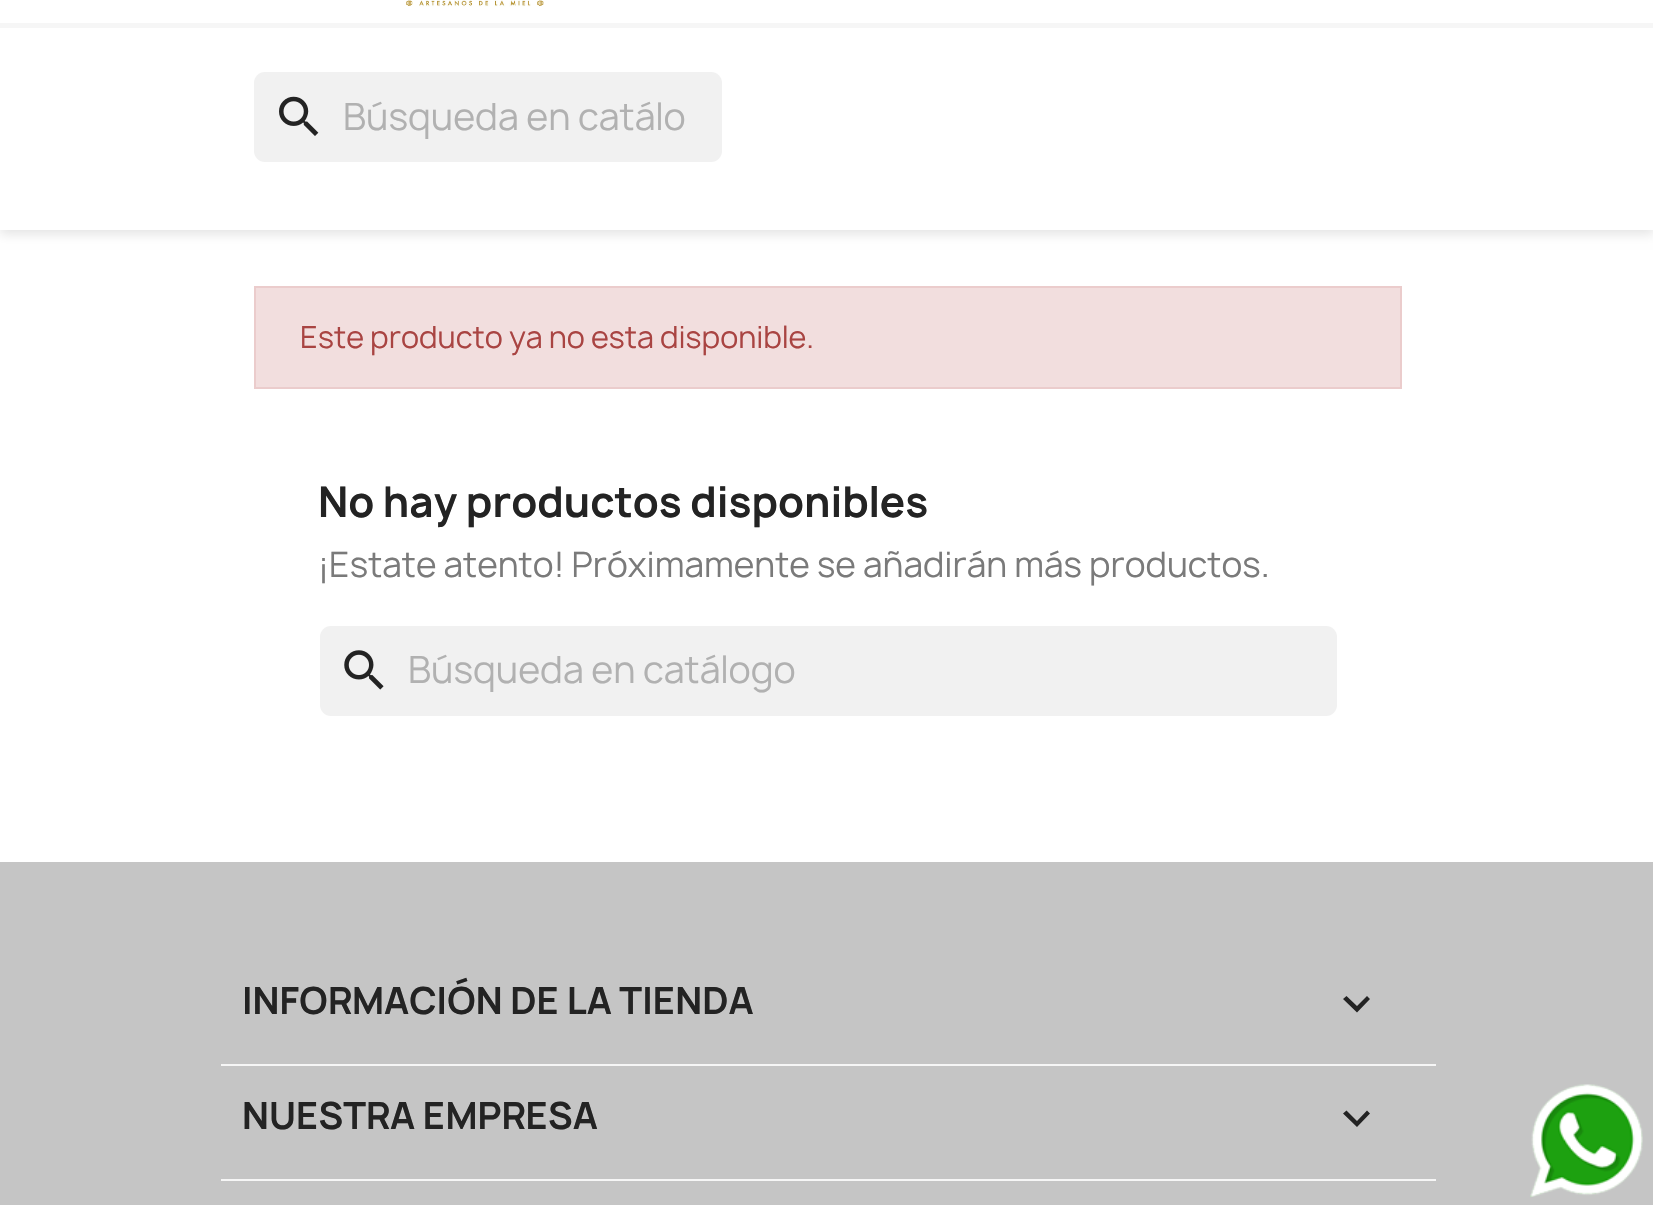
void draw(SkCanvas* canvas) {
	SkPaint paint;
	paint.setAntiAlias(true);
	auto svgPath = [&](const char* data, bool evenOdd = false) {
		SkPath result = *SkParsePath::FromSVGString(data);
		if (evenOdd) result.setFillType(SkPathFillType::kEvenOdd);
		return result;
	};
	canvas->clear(0xffffffff);
	paint.setColor(0x1c000000);
	paint.setMaskFilter(SkMaskFilter::MakeBlur(kNormal_SkBlurStyle, 5.5));
	canvas->drawRect(SkRect::MakeXYWH(0, -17, 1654, 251), paint);
	paint.setMaskFilter(nullptr);
	paint.setColor(0xffffffff);
	canvas->drawRect(SkRect::MakeXYWH(0, 0, 1653, 230), paint);
	paint.setColor(0xfff6f6f6);
	canvas->drawRect(SkRect::MakeXYWH(0, 23, 1653, 5), paint);
	canvas->drawImageRect(SkImages::DeferredFromEncodedData(SkData::MakeFromFileName("img1.png")), SkRect::MakeXYWH(406, 0, 138, 7), SkSamplingOptions());
	paint.setColor(0xfff1f1f1);
	canvas->drawRoundRect(SkRect::MakeXYWH(254, 72, 468, 90), 11, 11, paint);
	canvas->drawImageRect(SkImages::DeferredFromEncodedData(SkData::MakeFromFileName("img2.png")), SkRect::MakeXYWH(279, 96, 40, 40), SkSamplingOptions());
	SkFont f1(fontMgr->matchFamilyStyle("Manrope", SkFontStyle::Normal()), 36);
	f1.setSubpixel(true);
	paint.setColor(0xffb1b1b1);
	canvas->drawString("Búsqueda en catálo", 343, 130, f1, paint);
	paint.setColor(0xfff2dede);
	canvas->drawRect(SkRect::MakeXYWH(255, 287, 1146, 101), paint);
	paint.setStroke(true);
	paint.setStrokeWidth(2);
	paint.setColor(0xffebcccc);
	canvas->drawRect(SkRect::MakeXYWH(255, 287, 1146, 101), paint);
	SkFont f2(fontMgr->matchFamilyStyle("Manrope", SkFontStyle::Normal()), 29.25);
	f2.setSubpixel(true);
	paint.setStroke(false);
	paint.setColor(0xffa94442);
	canvas->drawString("Este producto ya no esta disponible.", 300, 348, f2, paint);
	SkFont f3(fontMgr->matchFamilyStyle("Manrope", SkFontStyle::Bold()), 40.5);
	f3.setSubpixel(true);
	paint.setColor(0xff232323);
	canvas->drawString("No hay productos disponibles", 318, 517, f3, paint);
	SkFont f4(fontMgr->matchFamilyStyle("Manrope", SkFontStyle::Normal()), 33.75);
	f4.setSubpixel(true);
	paint.setColor(0xff7a7a7a);
	canvas->drawString("¡Estate atento! Próximamente se añadirán más productos.", 318, 577, f4, paint);
	paint.setColor(0xfff1f1f1);
	canvas->drawRoundRect(SkRect::MakeXYWH(320, 626, 1017, 90), 11, 11, paint);
	canvas->drawImageRect(SkImages::DeferredFromEncodedData(SkData::MakeFromFileName("img3.png")), SkRect::MakeXYWH(344, 650, 40, 40), SkSamplingOptions());
	paint.setColor(0xffb1b1b1);
	canvas->drawString("Búsqueda en catálogo", 408, 683, f1, paint);
	paint.setColor(0xffc5c5c5);
	canvas->drawRect(SkRect::MakeXYWH(0, 862, 1653, 343), paint);
	paint.setColor(0xfff6f6f6);
	canvas->drawRect(SkRect::MakeXYWH(221, 1064, 1215, 2), paint);
	SkFont f5(fontMgr->matchFamilyStyle("Manrope", SkFontStyle::Bold()), 36);
	f5.setSubpixel(true);
	paint.setColor(0xff232323);
	canvas->drawString("INFORMACIÓN DE LA TIENDA", 242, 1014, f5, paint);
	canvas->drawPath(svgPath("M1346.5 996L1357 1006L1367 996L1370 999L1357 1012.5L1343 999Z"), paint);
	paint.setColor(0xfff6f6f6);
	canvas->drawRect(SkRect::MakeXYWH(221, 1179, 1215, 2), paint);
	paint.setColor(0xff232323);
	canvas->drawString("NUESTRA EMPRESA", 242, 1129, f5, paint);
	canvas->drawPath(svgPath("M1346.5 1110.5L1357 1121L1367 1110.5L1370 1113.5L1357 1127L1343 1113.5Z"), paint);
	canvas->drawImageRect(SkImages::DeferredFromEncodedData(SkData::MakeFromFileName("img4.png")), SkRect::MakeXYWH(1530, 1084, 113, 113), SkSamplingOptions());
}
